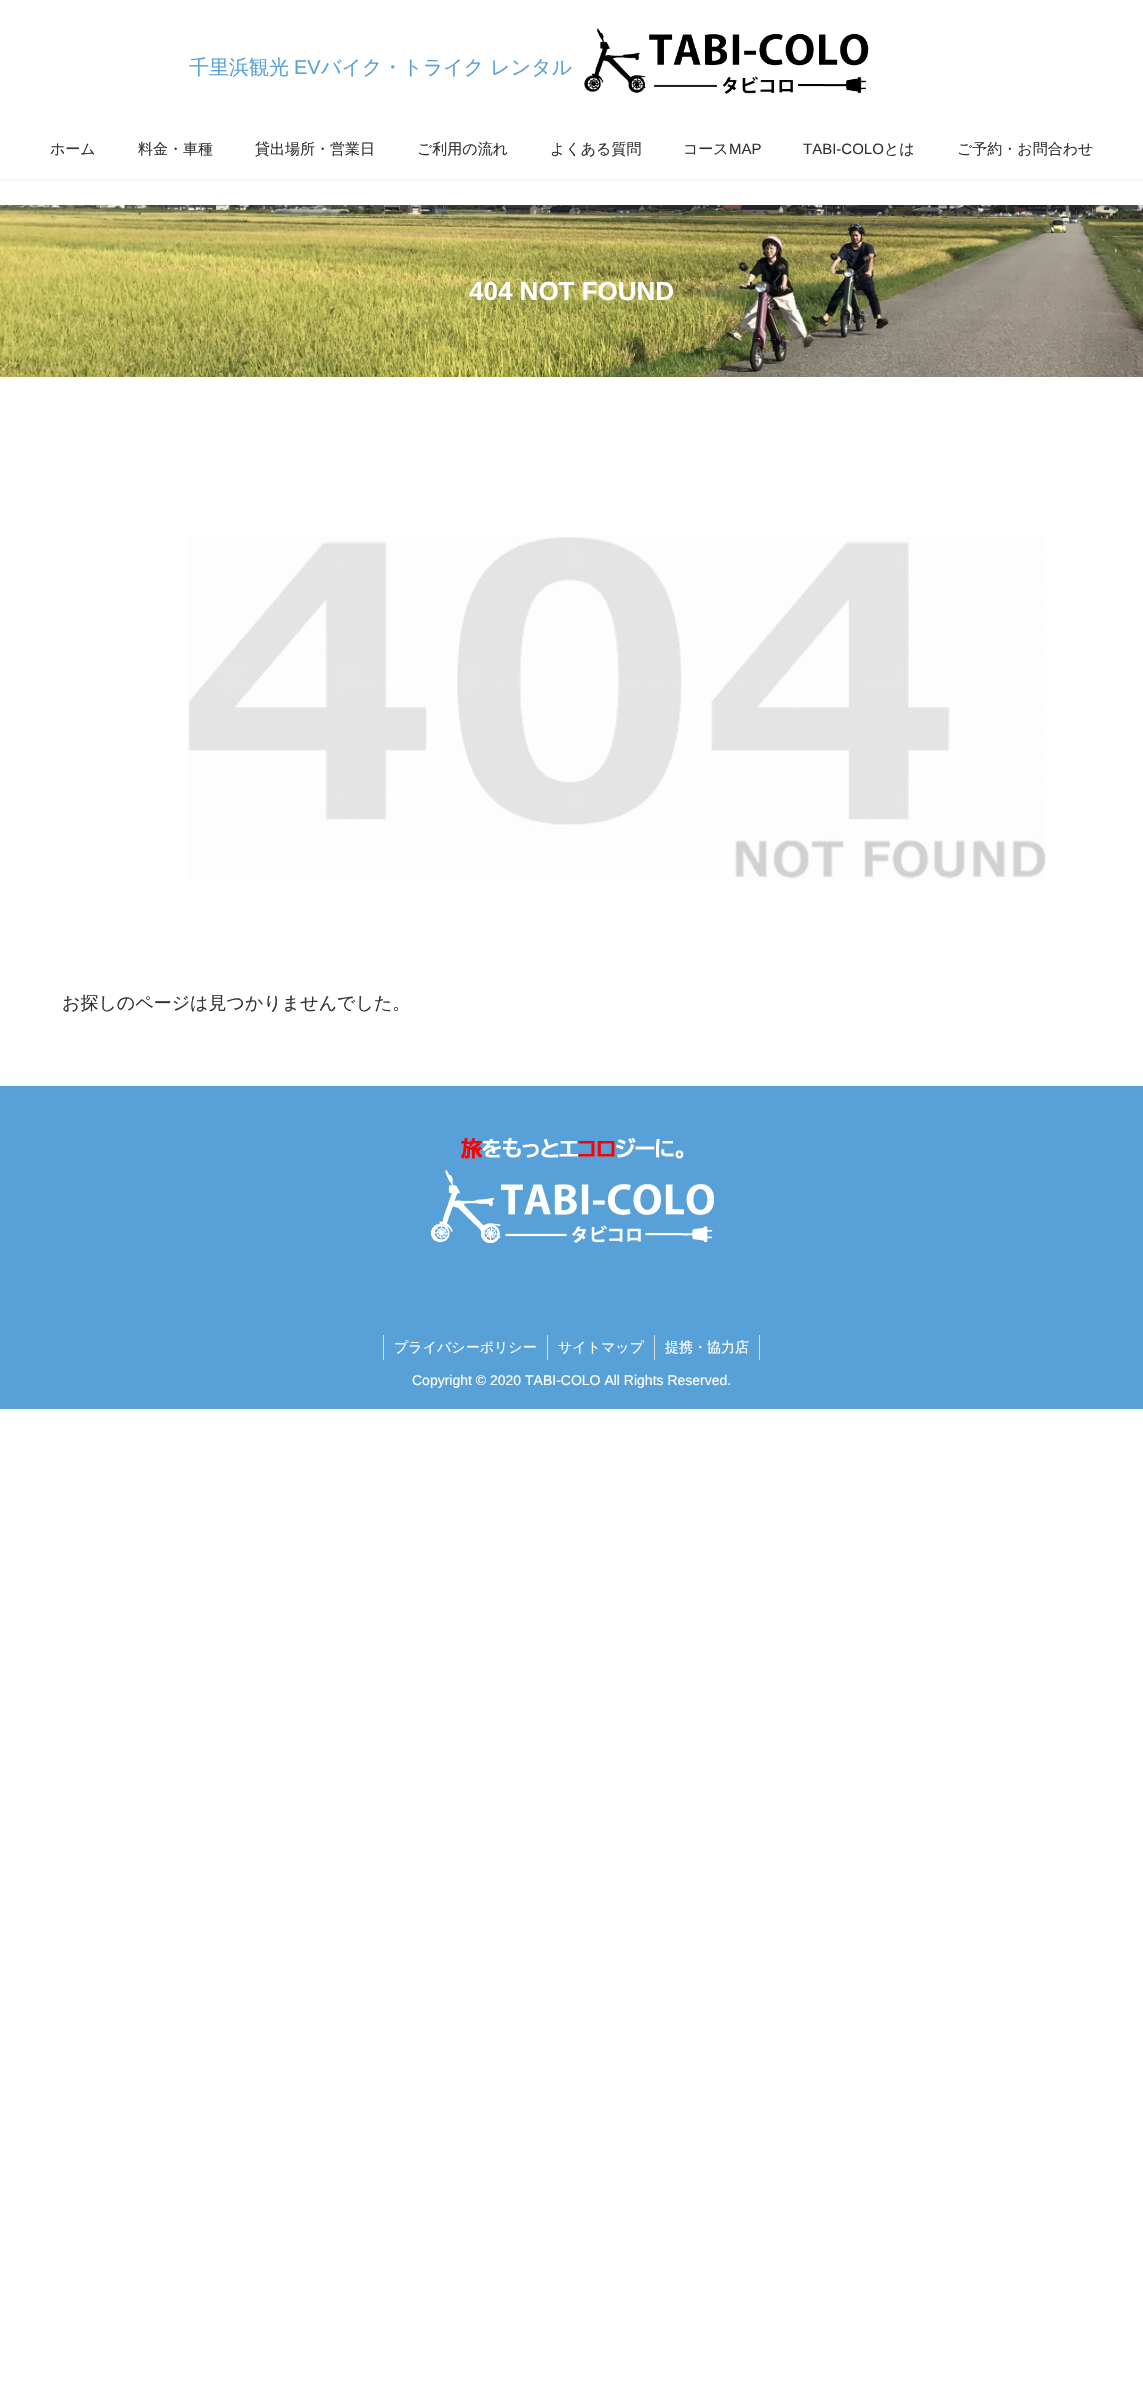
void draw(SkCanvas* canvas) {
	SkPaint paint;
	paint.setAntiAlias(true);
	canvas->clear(0xffffffff);
	SkFont f1(fontMgr->matchFamilyStyle("WenQuanYi Zen Hei", SkFontStyle(500, SkFontStyle::kNormal_Width, SkFontStyle::kUpright_Slant)), 20);
	f1.setSubpixel(true);
	paint.setColor(0xff58a1d8);
	canvas->drawString("千里浜観光", 189, 74, f1, paint);
	SkFont f2(fontMgr->matchFamilyStyle("Liberation Sans", SkFontStyle::Normal()), 20);
	f2.setSubpixel(true);
	canvas->drawString("EV", 294, 74, f2, paint);
	canvas->drawString("バイク・トライク レンタル", 321, 74, f1, paint);
	canvas->drawImageRect(SkImages::DeferredFromEncodedData(SkData::MakeFromFileName("img1.png")), SkRect::MakeXYWH(584, 28, 285, 66), SkSamplingOptions());
	canvas->save();
	canvas->clipRect(SkRect::MakeXYWH(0, 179, 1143, 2));
	paint.setColor(0x0d000000);
	paint.setMaskFilter(SkMaskFilter::MakeBlur(kNormal_SkBlurStyle, 1));
	canvas->drawRect(SkRect::MakeXYWH(-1, 119, 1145, 62), paint);
	paint.setMaskFilter(nullptr);
	canvas->restore();
	SkFont f3(fontMgr->matchFamilyStyle("WenQuanYi Zen Hei", SkFontStyle(500, SkFontStyle::kNormal_Width, SkFontStyle::kUpright_Slant)), 15);
	f3.setSubpixel(true);
	paint.setColor(0xff333333);
	canvas->drawString("ホーム", 50, 154, f3, paint);
	canvas->drawString("料金・車種", 138, 154, f3, paint);
	canvas->drawString("貸出場所・営業日", 255, 154, f3, paint);
	canvas->drawString("ご利用の流れ", 417, 154, f3, paint);
	canvas->drawString("よくある質問", 550, 154, f3, paint);
	canvas->drawString("コース", 683, 154, f3, paint);
	SkFont f4(fontMgr->matchFamilyStyle("Liberation Sans", SkFontStyle::Normal()), 15);
	f4.setSubpixel(true);
	canvas->drawString("MAP", 729, 154, f4, paint);
	canvas->drawString("TABI-COLO", 803, 154, f4, paint);
	canvas->drawString("とは", 884, 154, f3, paint);
	canvas->drawString("ご予約・お問合わせ", 957, 154, f3, paint);
	canvas->drawImageRect(SkImages::DeferredFromEncodedData(SkData::MakeFromFileName("img2.png")), SkRect::MakeXYWH(0, 205, 1143, 172), SkSamplingOptions());
	SkFont f5(fontMgr->matchFamilyStyle("Liberation Sans", SkFontStyle::Bold()), 26);
	f5.setSubpixel(true);
	paint.setColor(0xffffffff);
	canvas->drawString("404 NOT FOUND", 469, 300, f5, paint);
	canvas->drawImageRect(SkImages::DeferredFromEncodedData(SkData::MakeFromFileName("img3.png")), SkRect::MakeXYWH(187, 536, 859, 344), SkSamplingOptions());
	SkFont f6(fontMgr->matchFamilyStyle("WenQuanYi Zen Hei", SkFontStyle(500, SkFontStyle::kNormal_Width, SkFontStyle::kUpright_Slant)), 18);
	f6.setSubpixel(true);
	paint.setColor(0xff333333);
	canvas->drawString("お探しのページは見つかりませんでした。", 62, 1009, f6, paint);
	paint.setColor(0xff58a1d8);
	canvas->drawRect(SkRect::MakeXYWH(0, 1086, 1143, 323), paint);
	canvas->drawImageRect(SkImages::DeferredFromEncodedData(SkData::MakeFromFileName("img4.png")), SkRect::MakeXYWH(431, 1138, 283, 105), SkSamplingOptions());
	paint.setColor(0xffdddddd);
	canvas->drawRect(SkRect::MakeXYWH(383, 1335, 1, 25), paint);
	SkFont f7(fontMgr->matchFamilyStyle("WenQuanYi Zen Hei", SkFontStyle(500, SkFontStyle::kNormal_Width, SkFontStyle::kUpright_Slant)), 14);
	f7.setSubpixel(true);
	paint.setColor(0xffffffff);
	canvas->drawString("プライバシーポリシー", 394, 1352, f7, paint);
	paint.setColor(0xffdddddd);
	canvas->drawRect(SkRect::MakeXYWH(547, 1335, 1, 25), paint);
	paint.setColor(0xffffffff);
	canvas->drawString("サイトマップ", 558, 1352, f7, paint);
	paint.setColor(0xffdddddd);
	canvas->drawRect(SkRect::MakeXYWH(759, 1335, 1, 25), paint);
	canvas->drawRect(SkRect::MakeXYWH(654, 1335, 1, 25), paint);
	paint.setColor(0xffffffff);
	canvas->drawString("提携・協力店", 665, 1352, f7, paint);
	SkFont f8(fontMgr->matchFamilyStyle("Liberation Sans", SkFontStyle::Normal()), 14);
	f8.setSubpixel(true);
	canvas->drawString("Copyright © 2020 TABI-COLO All Rights Reserved.", 412, 1385, f8, paint);
}
